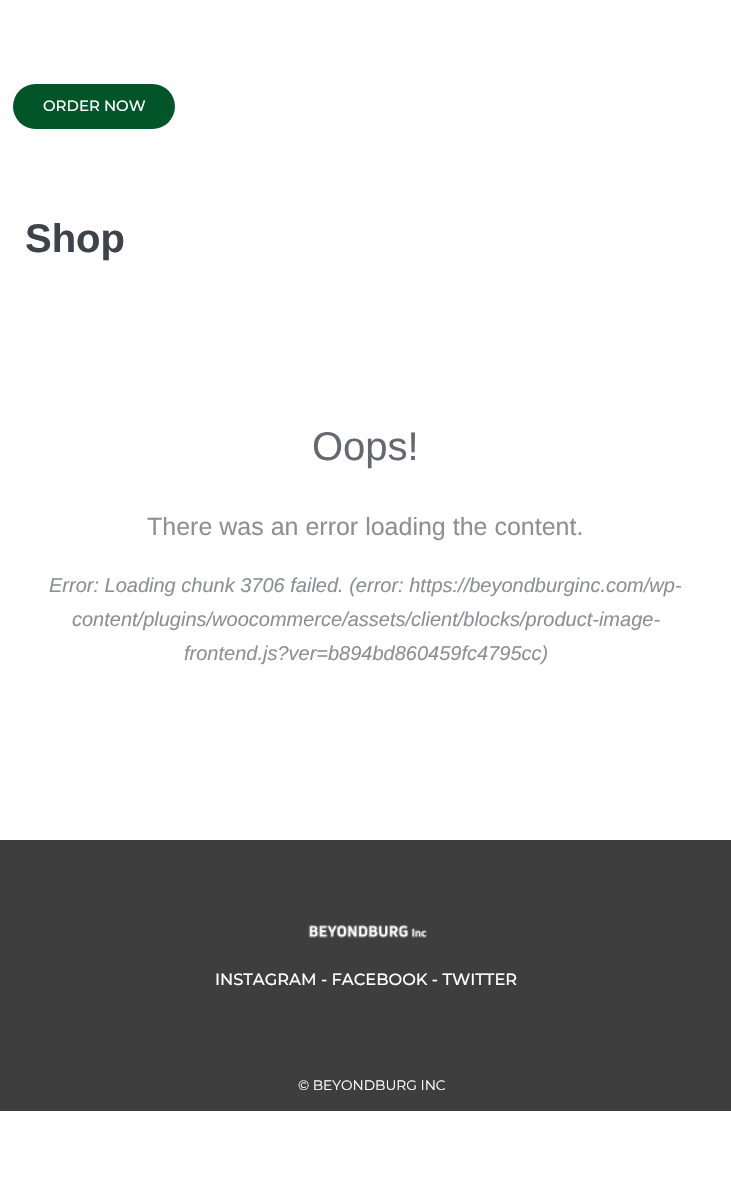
void draw(SkCanvas* canvas) {
	SkPaint paint;
	paint.setAntiAlias(true);
	canvas->clear(0xffffffff);
	paint.setColor(0xff015529);
	canvas->drawRoundRect(SkRect::MakeXYWH(13, 84, 162, 45), 22.5, 22.5, paint);
	SkFont f1(fontMgr->matchFamilyStyle("Montserrat", SkFontStyle(500, SkFontStyle::kNormal_Width, SkFontStyle::kUpright_Slant)), 15);
	f1.setSubpixel(true);
	paint.setColor(0xffffffff);
	canvas->drawString("ORDER NOW", 43, 111, f1, paint);
	SkFont f2(fontMgr->matchFamilyStyle("Liberation Sans", SkFontStyle::Bold()), 40);
	f2.setSubpixel(true);
	paint.setColor(0xff3e4349);
	canvas->drawString("Shop", 25, 252, f2, paint);
	SkFont f3(fontMgr->matchFamilyStyle("Liberation Sans", SkFontStyle::Normal()), 40);
	f3.setSubpixel(true);
	paint.setColor(0xff646970);
	canvas->drawString("Oops!", 312, 460, f3, paint);
	SkFont f4(fontMgr->matchFamilyStyle("Liberation Sans", SkFontStyle::Normal()), 25);
	f4.setSubpixel(true);
	paint.setColor(0xff8c8f94);
	canvas->drawString("There was an error loading the content.", 147, 535, f4, paint);
	SkFont f5(fontMgr->matchFamilyStyle("Liberation Sans", SkFontStyle::Italic()), 20);
	f5.setSubpixel(true);
	canvas->drawString("Error: Loading chunk 3706 failed. (error: https://beyondburginc.com/wp-", 49, 592, f5, paint);
	canvas->drawString("content/plugins/woocommerce/assets/client/blocks/product-image-", 72, 626, f5, paint);
	canvas->drawString("frontend.js?ver=b894bd860459fc4795cc)", 184, 660, f5, paint);
	paint.setColor(0xff3e3e3e);
	canvas->drawRect(SkRect::MakeXYWH(0, 840, 731, 271), paint);
	canvas->drawImageRect(SkImages::DeferredFromEncodedData(SkData::MakeFromFileName("img1.png")), SkRect::MakeXYWH(308, 924, 119, 14), SkSamplingOptions());
	SkFont f6(fontMgr->matchFamilyStyle("Montserrat", SkFontStyle(500, SkFontStyle::kNormal_Width, SkFontStyle::kUpright_Slant)), 16.25);
	f6.setSubpixel(true);
	paint.setColor(0xffffffff);
	canvas->drawString("INSTAGRAM - FACEBOOK - TWITTER", 215, 985, f6, paint);
	SkFont f7(fontMgr->matchFamilyStyle("Montserrat", SkFontStyle::Normal()), 13.75);
	f7.setSubpixel(true);
	canvas->drawString("© BEYONDBURG INC", 298, 1090, f7, paint);
}
